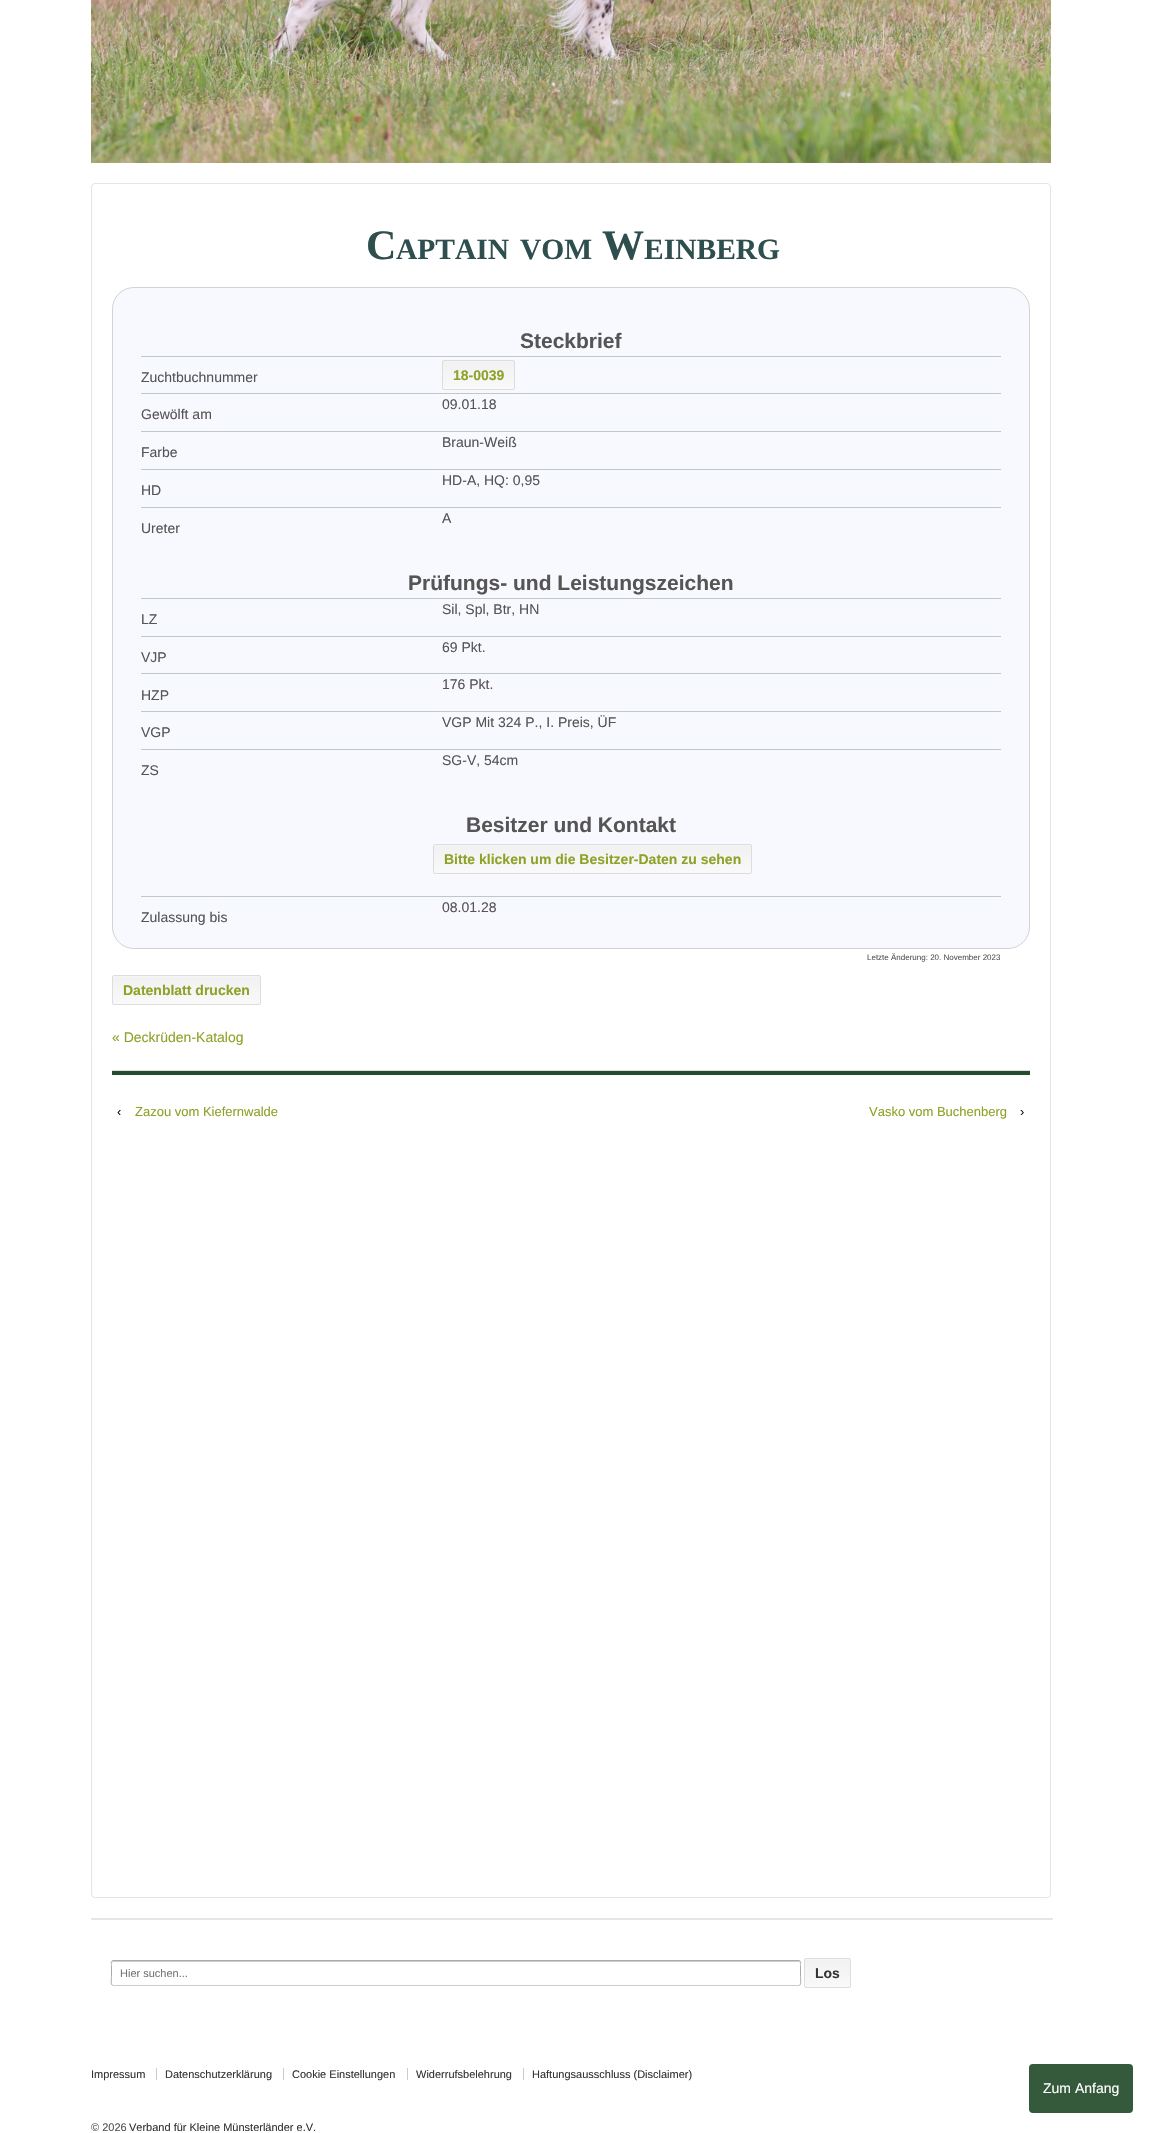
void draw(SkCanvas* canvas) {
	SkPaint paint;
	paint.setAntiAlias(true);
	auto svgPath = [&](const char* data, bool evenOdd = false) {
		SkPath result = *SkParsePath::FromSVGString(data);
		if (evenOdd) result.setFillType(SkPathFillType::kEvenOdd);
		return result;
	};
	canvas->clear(0xffffffff);
	canvas->drawImageRect(SkImages::DeferredFromEncodedData(SkData::MakeFromFileName("img1.png")), SkRect::MakeXYWH(91, 0, 960, 163), SkSamplingOptions());
	paint.setStroke(true);
	paint.setStrokeWidth(1);
	paint.setColor(0xffe5e5e5);
	canvas->drawRoundRect(SkRect::MakeXYWH(91.5, 183.5, 959, 1714), 3.5, 3.5, paint);
	SkFont f1(fontMgr->matchFamilyStyle("Liberation Serif", SkFontStyle::Bold()), 42);
	f1.setSubpixel(true);
	paint.setStroke(false);
	paint.setColor(0xff2f4f4f);
	canvas->drawString("C", 366, 259, f1, paint);
	SkFont f2(fontMgr->matchFamilyStyle("Liberation Serif", SkFontStyle::Bold()), 29.5);
	f2.setSubpixel(true);
	canvas->drawString("APTAIN", 396, 259, f2, paint);
	canvas->drawString("VOM", 520, 259, f2, paint);
	canvas->drawString("W", 602, 259, f1, paint);
	canvas->drawString("EINBERG", 644, 259, f2, paint);
	paint.setColor(0xfff8f8ff);
	canvas->drawRoundRect(SkRect::MakeXYWH(112.5, 287.5, 917, 661), 21.5, 21.5, paint);
	paint.setStroke(true);
	paint.setColor(0xffd3d3d3);
	canvas->drawRoundRect(SkRect::MakeXYWH(112.5, 287.5, 917, 661), 21.5, 21.5, paint);
	SkFont f3(fontMgr->matchFamilyStyle("Liberation Sans", SkFontStyle::Bold()), 21);
	f3.setSubpixel(true);
	paint.setStroke(false);
	paint.setColor(0xff555555);
	canvas->drawString("Steckbrief", 520, 348, f3, paint);
	SkFont f4(fontMgr->matchFamilyStyle("Liberation Sans", SkFontStyle::Normal()), 14);
	f4.setSubpixel(true);
	canvas->drawString("Zuchtbuchnummer", 141, 382, f4, paint);
	paint.setColor(0xffbdc8ca);
	canvas->drawRect(SkRect::MakeXYWH(141, 356, 860, 1), paint);
	canvas->save();
	canvas->clipPath(svgPath("M444 360H513C514 360 515 361 515 362V388C515 389 514 390 513 390H444C443 390 442 389 442 388V362C442 361 443 360 444 360Z"), true);
	{
		const SkColor colors[] = {0xfff9f9f9, 0xfff1f1f1};
		const float stops[] = {0, 1};
		const SkPoint ends[] = {{479, 389}, {479, 361}};
		paint.setShader(SkGradientShader::MakeLinear(ends, colors, stops, 2, SkTileMode::kClamp));
		paint.setAlpha(255);
	}
	canvas->drawRect(SkRect::MakeXYWH(442, 361, 73, 28), paint);
	canvas->restore();
	paint.setShader(nullptr);
	paint.setColor(0xfff5f5f5);
	canvas->drawPath(svgPath("M444 362H513C514 362 514 362 514 363L513 361H444C443 361 443 362 443 363C443 362 443 362 444 362Z"), paint);
	paint.setStroke(true);
	paint.setColor(0xffdddddd);
	canvas->drawRoundRect(SkRect::MakeXYWH(442.5, 360.5, 72, 29), 1.5, 1.5, paint);
	SkFont f5(fontMgr->matchFamilyStyle("Liberation Sans", SkFontStyle::Bold()), 14);
	f5.setSubpixel(true);
	paint.setStroke(false);
	paint.setColor(0xff8ea228);
	canvas->drawString("18-0039", 453, 380, f5, paint);
	paint.setColor(0xffbdc8ca);
	canvas->drawRect(SkRect::MakeXYWH(141, 393, 860, 1), paint);
	paint.setColor(0xff555555);
	canvas->drawString("09.01.18", 442, 409, f4, paint);
	canvas->drawString("Gewölft am", 141, 419, f4, paint);
	paint.setColor(0xffbdc8ca);
	canvas->drawRect(SkRect::MakeXYWH(141, 431, 860, 1), paint);
	paint.setColor(0xff555555);
	canvas->drawString("Braun-Weiß", 442, 447, f4, paint);
	canvas->drawString("Farbe", 141, 457, f4, paint);
	paint.setColor(0xffbdc8ca);
	canvas->drawRect(SkRect::MakeXYWH(141, 469, 860, 1), paint);
	paint.setColor(0xff555555);
	canvas->drawString("HD-A, HQ: 0,95", 442, 485, f4, paint);
	canvas->drawString("HD", 141, 495, f4, paint);
	paint.setColor(0xffbdc8ca);
	canvas->drawRect(SkRect::MakeXYWH(141, 507, 860, 1), paint);
	paint.setColor(0xff555555);
	canvas->drawString("A", 442, 523, f4, paint);
	canvas->drawString("Ureter", 141, 533, f4, paint);
	canvas->drawString("Prüfungs- und Leistungszeichen", 408, 590, f3, paint);
	paint.setColor(0xffbdc8ca);
	canvas->drawRect(SkRect::MakeXYWH(141, 598, 860, 1), paint);
	paint.setColor(0xff555555);
	canvas->drawString("Sil, Spl, Btr, HN", 442, 614, f4, paint);
	canvas->drawString("LZ", 141, 624, f4, paint);
	paint.setColor(0xffbdc8ca);
	canvas->drawRect(SkRect::MakeXYWH(141, 636, 860, 1), paint);
	paint.setColor(0xff555555);
	canvas->drawString("69 Pkt.", 442, 652, f4, paint);
	canvas->drawString("VJP", 141, 662, f4, paint);
	paint.setColor(0xffbdc8ca);
	canvas->drawRect(SkRect::MakeXYWH(141, 673, 860, 1), paint);
	paint.setColor(0xff555555);
	canvas->drawString("176 Pkt.", 442, 689, f4, paint);
	canvas->drawString("HZP", 141, 700, f4, paint);
	paint.setColor(0xffbdc8ca);
	canvas->drawRect(SkRect::MakeXYWH(141, 711, 860, 1), paint);
	paint.setColor(0xff555555);
	canvas->drawString("VGP Mit 324 P., I. Preis, ÜF", 442, 727, f4, paint);
	canvas->drawString("VGP", 141, 737, f4, paint);
	paint.setColor(0xffbdc8ca);
	canvas->drawRect(SkRect::MakeXYWH(141, 749, 860, 1), paint);
	paint.setColor(0xff555555);
	canvas->drawString("SG-V, 54cm", 442, 765, f4, paint);
	canvas->drawString("ZS", 141, 775, f4, paint);
	canvas->drawString("Besitzer und Kontakt", 466, 832, f3, paint);
	canvas->save();
	canvas->clipPath(svgPath("M435 844H750C751 844 752 845 752 846V872C752 873 751 874 750 874H435C434 874 433 873 433 872V846C433 845 434 844 435 844Z"), true);
	{
		const SkColor colors[] = {0xfff9f9f9, 0xfff1f1f1};
		const float stops[] = {0, 1};
		const SkPoint ends[] = {{593, 873}, {593, 845}};
		paint.setShader(SkGradientShader::MakeLinear(ends, colors, stops, 2, SkTileMode::kClamp));
		paint.setAlpha(255);
	}
	canvas->drawRect(SkRect::MakeXYWH(433, 845, 319, 28), paint);
	canvas->restore();
	paint.setShader(nullptr);
	paint.setColor(0xfff5f5f5);
	canvas->drawPath(svgPath("M435 846H750C751 846 751 846 751 847C751 846 751 845 750 845H435H434V847C434 846 434 846 435 846Z"), paint);
	paint.setStroke(true);
	paint.setColor(0xffdddddd);
	canvas->drawRoundRect(SkRect::MakeXYWH(433.5, 844.5, 318, 29), 1.5, 1.5, paint);
	paint.setStroke(false);
	paint.setColor(0xff8ea228);
	canvas->drawString("Bitte klicken um die Besitzer-Daten zu sehen", 444, 864, f5, paint);
	paint.setColor(0xffbdc8ca);
	canvas->drawRect(SkRect::MakeXYWH(141, 896, 860, 1), paint);
	paint.setColor(0xff555555);
	canvas->drawString("08.01.28", 442, 912, f4, paint);
	canvas->drawString("Zulassung bis", 141, 922, f4, paint);
	SkFont f6(fontMgr->matchFamilyStyle("Liberation Sans", SkFontStyle::Normal()), 8);
	f6.setSubpixel(true);
	canvas->drawString("Letzte Änderung: 20. November 2023", 867, 960, f6, paint);
	canvas->save();
	canvas->clipPath(svgPath("M114 975H259C260 975 261 976 261 977V1003C261 1004 260 1005 259 1005H114C113 1005 112 1004 112 1003V977C112 976 113 975 114 975Z"), true);
	{
		const SkColor colors[] = {0xfff9f9f9, 0xfff1f1f1};
		const float stops[] = {0, 1};
		const SkPoint ends[] = {{187, 1004}, {187, 976}};
		paint.setShader(SkGradientShader::MakeLinear(ends, colors, stops, 2, SkTileMode::kClamp));
		paint.setAlpha(255);
	}
	canvas->drawRect(SkRect::MakeXYWH(112, 976, 149, 28), paint);
	canvas->restore();
	paint.setShader(nullptr);
	paint.setColor(0xfff5f5f5);
	canvas->drawPath(svgPath("M114 977H259C260 977 260 977 260 978V976H114C113 976 113 977 113 978C113 977 113 977 114 977Z"), paint);
	paint.setStroke(true);
	paint.setColor(0xffdddddd);
	canvas->drawRoundRect(SkRect::MakeXYWH(112.5, 975.5, 148, 29), 1.5, 1.5, paint);
	paint.setStroke(false);
	paint.setColor(0xff8ea228);
	canvas->drawString("Datenblatt drucken", 123, 995, f5, paint);
	canvas->drawString("« Deckrüden-Katalog", 112, 1042, f4, paint);
	paint.setColor(0xffdddddd);
	canvas->drawRect(SkRect::MakeXYWH(112, 1070, 918, 1), paint);
	paint.setColor(0xff254d2d);
	canvas->drawRect(SkRect::MakeXYWH(112, 1071, 918, 4), paint);
	SkFont f7(fontMgr->matchFamilyStyle("Liberation Sans", SkFontStyle::Normal()), 13);
	f7.setSubpixel(true);
	paint.setColor(0xff111111);
	canvas->drawString("‹", 117, 1116, f7, paint);
	paint.setColor(0xff8ea228);
	canvas->drawString("Zazou vom Kiefernwalde", 135, 1116, f7, paint);
	canvas->drawString("Vasko vom Buchenberg", 869, 1116, f7, paint);
	paint.setColor(0xff111111);
	canvas->drawString("›", 1020, 1116, f7, paint);
	paint.setColor(0xffe5e5e5);
	canvas->drawRoundRect(SkRect::MakeXYWH(91, 1918, 962, 2), 1, 1, paint);
	paint.setColor(0xffcccccc);
	canvas->drawPath(svgPath("M113 1962H799L800 1963C800 1962 800 1961 799 1961H113C112 1961 112 1962 112 1963ZM800 1984V1985ZM112 1984H112Z", true), paint);
	paint.setStroke(true);
	canvas->drawPath(svgPath("M800 1985L799 1985.5H113L112 1985"), paint);
	paint.setColor(0xffaaaaaa);
	canvas->drawPath(svgPath("M112 1985C110.5 1983.5 111.5 1978.5 111.5 1976.5V1965.5C111.5 1965 110.5 1960.5 113 1960.5H799C801.5 1960.5 800.5 1965 800.5 1965.5V1976.5C800.5 1978.5 801.5 1983.5 800 1985"), paint);
	SkFont f8(fontMgr->matchFamilyStyle("Liberation Sans", SkFontStyle::Normal()), 11);
	f8.setSubpixel(true);
	paint.setStroke(false);
	paint.setColor(0xff757575);
	canvas->drawString("Hier suchen...", 120, 1977, f8, paint);
	canvas->save();
	canvas->clipPath(svgPath("M806 1958H849C850 1958 851 1959 851 1960V1986C851 1987 850 1988 849 1988H806C805 1988 804 1987 804 1986V1960C804 1959 805 1958 806 1958Z"), true);
	{
		const SkColor colors[] = {0xfff9f9f9, 0xfff1f1f1};
		const float stops[] = {0, 1};
		const SkPoint ends[] = {{828, 1987}, {828, 1959}};
		paint.setShader(SkGradientShader::MakeLinear(ends, colors, stops, 2, SkTileMode::kClamp));
		paint.setAlpha(255);
	}
	canvas->drawRect(SkRect::MakeXYWH(804, 1959, 47, 28), paint);
	canvas->restore();
	paint.setShader(nullptr);
	paint.setColor(0xfff5f5f5);
	canvas->drawPath(svgPath("M806 1960H849C850 1960 850 1961 850 1962C850 1957 848 1959 842 1959H813C806 1959 805 1957 805 1962ZM850 1986V1987Z", true), paint);
	paint.setStroke(true);
	paint.setColor(0xffdddddd);
	canvas->drawRoundRect(SkRect::MakeXYWH(804.5, 1958.5, 46, 29), 1.5, 1.5, paint);
	paint.setStroke(false);
	paint.setColor(0xff333333);
	canvas->drawString("Los", 815, 1978, f5, paint);
	canvas->drawString("Impressum", 91, 2078, f8, paint);
	canvas->drawString("Datenschutzerklärung", 165, 2078, f8, paint);
	paint.setColor(0xffcccccc);
	canvas->drawRect(SkRect::MakeXYWH(156, 2068, 1, 12), paint);
	paint.setColor(0xff333333);
	canvas->drawString("Cookie Einstellungen", 292, 2078, f8, paint);
	paint.setColor(0xffcccccc);
	canvas->drawRect(SkRect::MakeXYWH(283, 2068, 1, 12), paint);
	paint.setColor(0xff333333);
	canvas->drawString("Widerrufsbelehrung", 416, 2078, f8, paint);
	paint.setColor(0xffcccccc);
	canvas->drawRect(SkRect::MakeXYWH(407, 2068, 1, 12), paint);
	paint.setColor(0xff333333);
	canvas->drawString("Haftungsausschluss (Disclaimer)", 532, 2078, f8, paint);
	paint.setColor(0xffcccccc);
	canvas->drawRect(SkRect::MakeXYWH(523, 2068, 1, 12), paint);
	paint.setColor(0xff555555);
	canvas->drawString("© 2026", 91, 2131, f8, paint);
	paint.setColor(0xff333333);
	canvas->drawString("Verband für Kleine Münsterländer e.V.", 129, 2131, f8, paint);
	paint.setColor(0xff34593b);
	canvas->drawRoundRect(SkRect::MakeXYWH(1029, 2064, 104, 49), 4, 4, paint);
	paint.setColor(0xffffffff);
	canvas->drawString("Zum Anfang", 1043, 2093, f4, paint);
}
